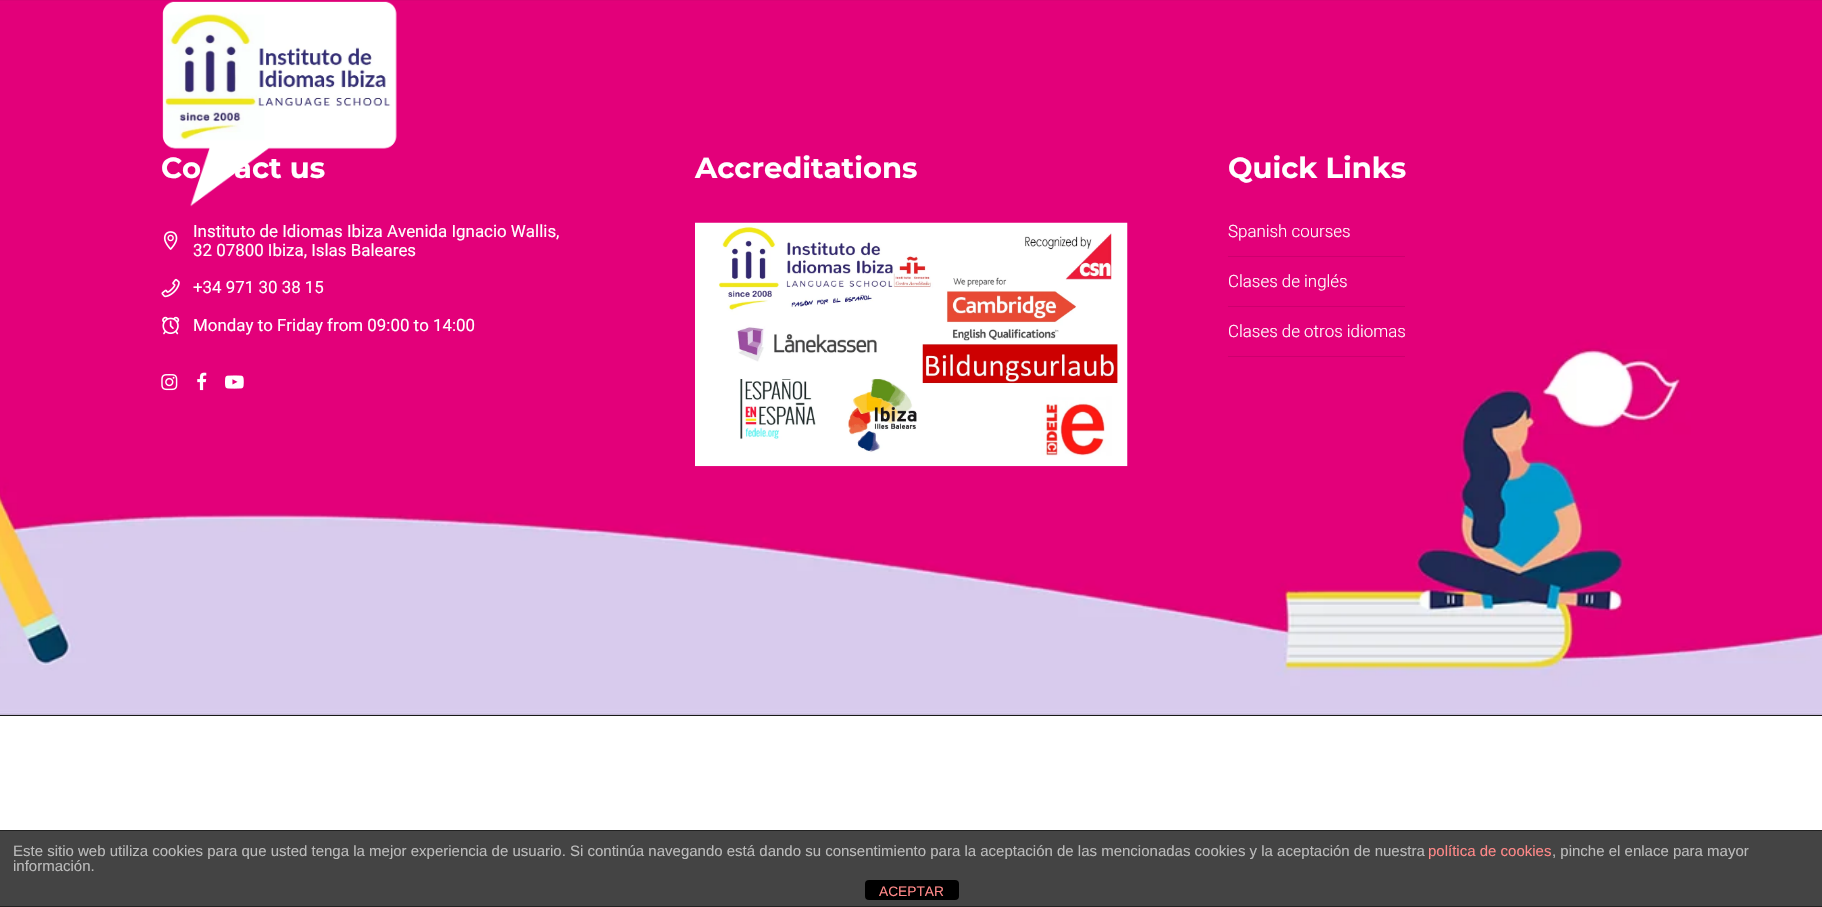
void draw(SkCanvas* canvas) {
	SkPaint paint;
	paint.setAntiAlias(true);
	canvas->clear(0xffffffff);
	paint.setColor(0xff191919);
	canvas->drawRect(SkRect::MakeXYWH(0, 0, 1822, 716), paint);
	canvas->drawImageRect(SkImages::DeferredFromEncodedData(SkData::MakeFromFileName("img2.png")), SkRect::MakeXYWH(0, 0, 1822, 715), SkSamplingOptions());
	SkFont f1(fontMgr->matchFamilyStyle("Montserrat", SkFontStyle::Bold()), 29);
	f1.setSubpixel(true);
	paint.setColor(0xffffffff);
	canvas->drawString("Co", 161, 178, f1, paint);
	canvas->drawString("act us", 234, 178, f1, paint);
	canvas->drawImageRect(SkImages::DeferredFromEncodedData(SkData::MakeFromFileName("img1.png")), SkRect::MakeXYWH(162, 1, 235, 206), SkSamplingOptions());
	canvas->drawImageRect(SkImages::DeferredFromEncodedData(SkData::MakeFromFileName("img3.png")), SkRect::MakeXYWH(163, 231, 15, 19), SkSamplingOptions());
	SkFont f2(fontMgr->matchFamilyStyle("Roboto", SkFontStyle::Normal()), 16.9);
	f2.setSubpixel(true);
	canvas->drawString("Instituto de Idiomas Ibiza Avenida Ignacio Wallis,", 193, 237, f2, paint);
	canvas->drawString("32 07800 Ibiza, Islas Baleares", 193, 256, f2, paint);
	canvas->drawImageRect(SkImages::DeferredFromEncodedData(SkData::MakeFromFileName("img4.png")), SkRect::MakeXYWH(161, 278, 19, 20), SkSamplingOptions());
	canvas->drawString("+34 971 30 38 15", 193, 293, f2, paint);
	canvas->drawImageRect(SkImages::DeferredFromEncodedData(SkData::MakeFromFileName("img5.png")), SkRect::MakeXYWH(162, 316, 18, 19), SkSamplingOptions());
	canvas->drawString("Monday to Friday from 09:00 to 14:00", 193, 331, f2, paint);
	canvas->drawImageRect(SkImages::DeferredFromEncodedData(SkData::MakeFromFileName("img6.png")), SkRect::MakeXYWH(161, 374, 17, 17), SkSamplingOptions());
	canvas->drawImageRect(SkImages::DeferredFromEncodedData(SkData::MakeFromFileName("img7.png")), SkRect::MakeXYWH(197, 372, 10, 19), SkSamplingOptions());
	canvas->drawImageRect(SkImages::DeferredFromEncodedData(SkData::MakeFromFileName("img8.png")), SkRect::MakeXYWH(225, 375, 19, 14), SkSamplingOptions());
	canvas->drawString("Accreditations", 695, 178, f1, paint);
	canvas->drawImageRect(SkImages::DeferredFromEncodedData(SkData::MakeFromFileName("img9.png")), SkRect::MakeXYWH(695, 222, 433, 245), SkSamplingOptions());
	canvas->drawString("Quick Links", 1228, 178, f1, paint);
	paint.setColor(0xffcc006e);
	canvas->drawRect(SkRect::MakeXYWH(1228, 256, 177, 1), paint);
	SkFont f3(fontMgr->matchFamilyStyle("Roboto", SkFontStyle(300, SkFontStyle::kNormal_Width, SkFontStyle::kUpright_Slant)), 16.9);
	f3.setSubpixel(true);
	paint.setColor(0xffffffff);
	canvas->drawString("Spanish courses", 1228, 237, f3, paint);
	paint.setColor(0xffcc006e);
	canvas->drawRect(SkRect::MakeXYWH(1228, 306, 177, 1), paint);
	paint.setColor(0xffffffff);
	canvas->drawString("Clases de inglés", 1228, 287, f3, paint);
	paint.setColor(0xffcc006e);
	canvas->drawRect(SkRect::MakeXYWH(1228, 356, 177, 1), paint);
	paint.setColor(0xffffffff);
	canvas->drawString("Clases de otros idiomas", 1228, 337, f3, paint);
	paint.setColor(0xff444444);
	canvas->drawRect(SkRect::MakeXYWH(0, 831, 1822, 75), paint);
	paint.setColor(0xff222222);
	canvas->drawRect(SkRect::MakeXYWH(0, 830, 1822, 1), paint);
	canvas->drawRect(SkRect::MakeXYWH(0, 906, 1822, 1), paint);
	SkFont f4(fontMgr->matchFamilyStyle("Liberation Sans", SkFontStyle::Normal()), 15);
	f4.setSubpixel(true);
	paint.setColor(0xffbbbbbb);
	canvas->drawString("Este sitio web utiliza cookies para que usted tenga la mejor experiencia de usuario. Si continúa navegando está dando su consentimiento para la aceptación de las mencionadas cookies y la aceptación de nuestra", 13, 856, f4, paint);
	paint.setColor(0xffff8888);
	canvas->drawString("política de cookies", 1428, 856, f4, paint);
	paint.setColor(0xffbbbbbb);
	canvas->drawString(", pinche el enlace para mayor", 1552, 856, f4, paint);
	canvas->drawString("información.", 13, 871, f4, paint);
	paint.setColor(0xff000000);
	canvas->drawRoundRect(SkRect::MakeXYWH(865, 880, 94, 20), 4, 4, paint);
	SkFont f5(fontMgr->matchFamilyStyle("Liberation Sans", SkFontStyle::Normal()), 13.75);
	f5.setSubpixel(true);
	paint.setColor(0xffff8888);
	canvas->drawString("ACEPTAR", 879, 896, f5, paint);
}
